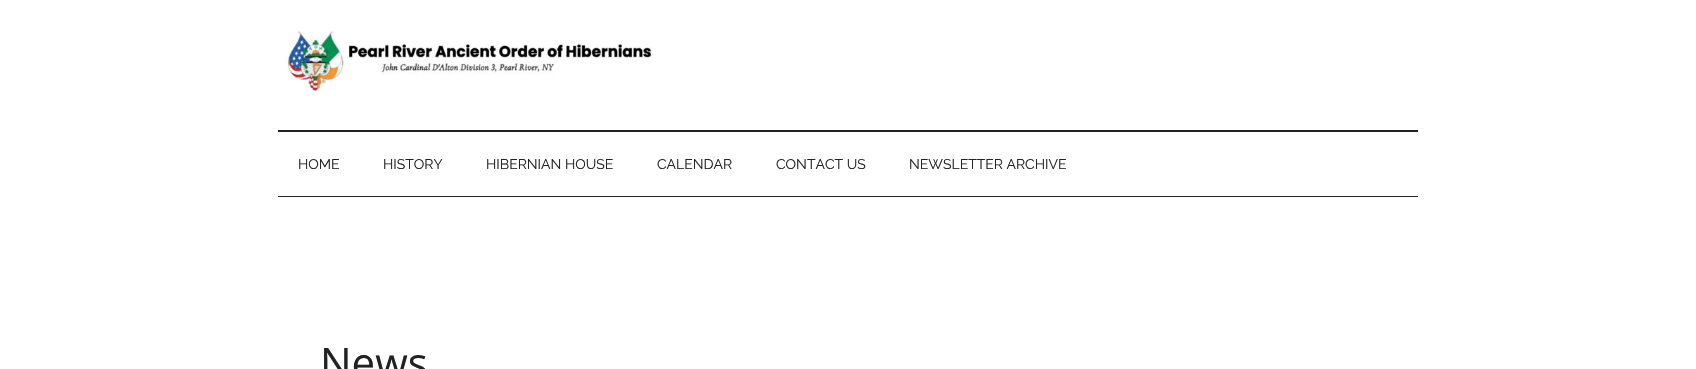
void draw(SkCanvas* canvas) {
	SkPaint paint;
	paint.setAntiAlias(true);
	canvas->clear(0xffffffff);
	paint.setColor(0xff222222);
	canvas->drawRect(SkRect::MakeXYWH(278, 130, 1140, 2), paint);
	canvas->drawImageRect(SkImages::DeferredFromEncodedData(SkData::MakeFromFileName("img1.png")), SkRect::MakeXYWH(285, 30, 369, 62), SkSamplingOptions());
	canvas->drawRect(SkRect::MakeXYWH(278, 196, 1140, 1), paint);
	SkFont f1(fontMgr->matchFamilyStyle("Raleway", SkFontStyle::Normal()), 14);
	f1.setSubpixel(true);
	canvas->drawString("HOME", 298, 169, f1, paint);
	canvas->drawString("HISTORY", 383, 169, f1, paint);
	canvas->drawString("HIBERNIAN HOUSE", 486, 169, f1, paint);
	canvas->drawString("CALENDAR", 657, 169, f1, paint);
	canvas->drawString("CONTACT US", 776, 169, f1, paint);
	canvas->drawString("NEWSLETTER ARCHIVE", 909, 169, f1, paint);
	SkFont f2(fontMgr->matchFamilyStyle("Open Sans", SkFontStyle::Normal()), 42);
	f2.setSubpixel(true);
	canvas->drawString("News", 320, 378, f2, paint);
}
